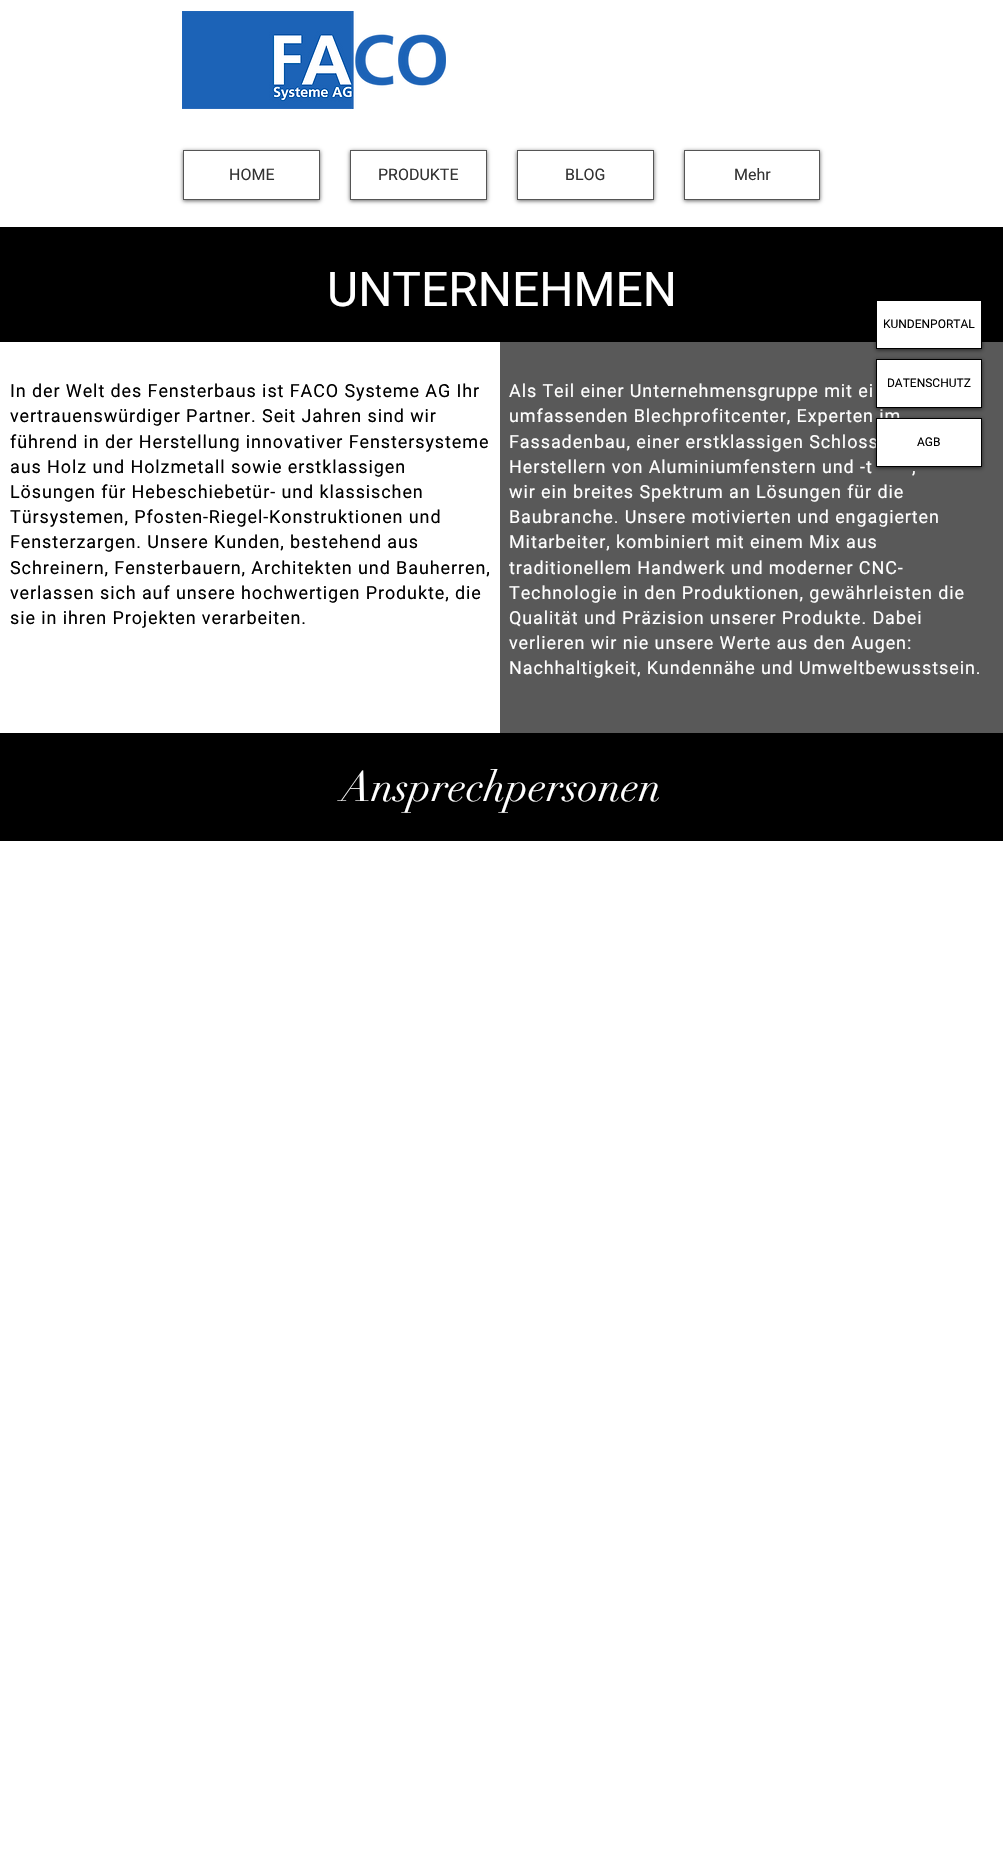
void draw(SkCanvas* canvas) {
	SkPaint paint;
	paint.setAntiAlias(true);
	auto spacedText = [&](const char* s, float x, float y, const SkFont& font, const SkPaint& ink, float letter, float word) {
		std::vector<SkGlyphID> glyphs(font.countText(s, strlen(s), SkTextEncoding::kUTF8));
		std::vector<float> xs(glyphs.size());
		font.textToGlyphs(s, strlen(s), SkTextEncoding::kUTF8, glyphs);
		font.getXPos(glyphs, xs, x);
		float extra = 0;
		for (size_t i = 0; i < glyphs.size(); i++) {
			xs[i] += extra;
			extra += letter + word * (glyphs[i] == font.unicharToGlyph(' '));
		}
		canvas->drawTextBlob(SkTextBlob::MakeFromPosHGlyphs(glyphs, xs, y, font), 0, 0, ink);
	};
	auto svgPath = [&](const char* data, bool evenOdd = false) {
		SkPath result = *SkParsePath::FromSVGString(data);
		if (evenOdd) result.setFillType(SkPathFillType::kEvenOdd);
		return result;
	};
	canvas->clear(0xffffffff);
	canvas->drawImageRect(SkImages::DeferredFromEncodedData(SkData::MakeFromFileName("img1.png")), SkRect::MakeXYWH(182, 11, 264, 98), SkSamplingOptions());
	canvas->save();
	canvas->clipPath(svgPath("M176 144H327V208H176ZM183 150H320V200H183Z", true), true);
	paint.setColor(0x99000000);
	paint.setMaskFilter(SkMaskFilter::MakeBlur(kNormal_SkBlurStyle, 2));
	canvas->drawRect(SkRect::MakeXYWH(183, 151, 137, 50), paint);
	paint.setMaskFilter(nullptr);
	canvas->restore();
	paint.setStroke(true);
	paint.setStrokeWidth(1);
	paint.setColor(0xff555555);
	canvas->drawRect(SkRect::MakeXYWH(183.5, 150.5, 136, 49), paint);
	SkFont f1(fontMgr->matchFamilyStyle("Roboto", SkFontStyle::Normal()), 16);
	f1.setSubpixel(true);
	paint.setStroke(false);
	paint.setColor(0xff333333);
	canvas->drawString("HOME", 229, 180, f1, paint);
	canvas->save();
	canvas->clipPath(svgPath("M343 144H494V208H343ZM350 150H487V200H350Z", true), true);
	paint.setColor(0x99000000);
	paint.setMaskFilter(SkMaskFilter::MakeBlur(kNormal_SkBlurStyle, 2));
	canvas->drawRect(SkRect::MakeXYWH(350, 151, 137, 50), paint);
	paint.setMaskFilter(nullptr);
	canvas->restore();
	paint.setStroke(true);
	paint.setColor(0xff555555);
	canvas->drawRect(SkRect::MakeXYWH(350.5, 150.5, 136, 49), paint);
	paint.setStroke(false);
	paint.setColor(0xff333333);
	canvas->drawString("PRODUKTE", 378, 180, f1, paint);
	canvas->save();
	canvas->clipPath(svgPath("M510 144H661V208H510ZM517 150H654V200H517Z", true), true);
	paint.setColor(0x99000000);
	paint.setMaskFilter(SkMaskFilter::MakeBlur(kNormal_SkBlurStyle, 2));
	canvas->drawRect(SkRect::MakeXYWH(517, 151, 137, 50), paint);
	paint.setMaskFilter(nullptr);
	canvas->restore();
	paint.setStroke(true);
	paint.setColor(0xff555555);
	canvas->drawRect(SkRect::MakeXYWH(517.5, 150.5, 136, 49), paint);
	paint.setStroke(false);
	paint.setColor(0xff333333);
	canvas->drawString("BLOG", 565, 180, f1, paint);
	canvas->save();
	canvas->clipPath(svgPath("M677 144H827V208H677ZM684 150H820V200H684Z", true), true);
	paint.setColor(0x99000000);
	paint.setMaskFilter(SkMaskFilter::MakeBlur(kNormal_SkBlurStyle, 2));
	canvas->drawRect(SkRect::MakeXYWH(684, 151, 136, 50), paint);
	paint.setMaskFilter(nullptr);
	canvas->restore();
	paint.setStroke(true);
	paint.setColor(0xff555555);
	canvas->drawRect(SkRect::MakeXYWH(684.5, 150.5, 135, 49), paint);
	paint.setStroke(false);
	paint.setColor(0xff333333);
	canvas->drawString("Mehr", 734, 180, f1, paint);
	paint.setColor(0xff000000);
	canvas->drawRect(SkRect::MakeXYWH(0, 227, 1003, 115), paint);
	SkFont f2(fontMgr->matchFamilyStyle("Roboto", SkFontStyle::Normal()), 48);
	f2.setSubpixel(true);
	paint.setColor(0xffffffff);
	canvas->drawString("UNTERNEHMEN", 327, 306, f2, paint);
	SkFont f3(fontMgr->matchFamilyStyle("Roboto", SkFontStyle::Normal()), 18);
	f3.setSubpixel(true);
	paint.setColor(0xff000000);
	spacedText("In der Welt des Fensterbaus ist FACO Systeme AG Ihr", 10, 397, f3, paint, 0.9, 0);
	spacedText("vertrauenswürdiger Partner. Seit Jahren sind wir", 10, 422, f3, paint, 0.9, 0);
	spacedText("führend in der Herstellung innovativer Fenstersysteme", 10, 448, f3, paint, 0.9, 0);
	spacedText("aus Holz und Holzmetall sowie erstklassigen", 10, 473, f3, paint, 0.9, 0);
	spacedText("Lösungen für Hebeschiebetür- und klassischen", 10, 498, f3, paint, 0.9, 0);
	spacedText("Türsystemen, Pfosten-Riegel-Konstruktionen und", 10, 523, f3, paint, 0.9, 0);
	spacedText("Fensterzargen. Unsere Kunden, bestehend aus", 10, 548, f3, paint, 0.9, 0);
	spacedText("Schreinern, Fensterbauern, Architekten und Bauherren,", 10, 574, f3, paint, 0.9, 0);
	spacedText("verlassen sich auf unsere hochwertigen Produkte, die", 10, 599, f3, paint, 0.9, 0);
	spacedText("sie in ihren Projekten verarbeiten.", 10, 624, f3, paint, 0.9, 0);
	paint.setColor(0xff595959);
	canvas->drawRect(SkRect::MakeXYWH(500, 342, 503, 391), paint);
	paint.setColor(0xffffffff);
	spacedText("Als Teil einer Unternehmensgruppe mit ei", 509, 397, f3, paint, 0.9, 0);
	spacedText("umfassenden Blechprofitcenter, Experten im", 509, 422, f3, paint, 0.9, 0);
	spacedText("Fassadenbau, einer erstklassigen Schloss", 509, 448, f3, paint, 0.9, 0);
	spacedText("Herstellern von Aluminiumfenstern und -t", 509, 473, f3, paint, 0.9, 0);
	spacedText(",", 912, 473, f3, paint, 0.9, 0);
	spacedText("wir ein breites Spektrum an Lösungen für die", 509, 498, f3, paint, 0.9, 0);
	spacedText("Baubranche. Unsere motivierten und engagierten", 509, 523, f3, paint, 0.9, 0);
	spacedText("Mitarbeiter, kombiniert mit einem Mix aus", 509, 548, f3, paint, 0.9, 0);
	spacedText("traditionellem Handwerk und moderner CNC-", 509, 574, f3, paint, 0.9, 0);
	spacedText("Technologie in den Produktionen, gewährleisten die", 509, 599, f3, paint, 0.9, 0);
	spacedText("Qualität und Präzision unserer Produkte. Dabei", 509, 624, f3, paint, 0.9, 0);
	spacedText("verlieren wir nie unsere Werte aus den Augen:", 509, 649, f3, paint, 0.9, 0);
	spacedText("Nachhaltigkeit, Kundennähe und Umweltbewusstsein.", 509, 674, f3, paint, 0.9, 0);
	paint.setColor(0xff000000);
	canvas->drawRect(SkRect::MakeXYWH(0, 733, 1003, 108), paint);
	SkFont f4(fontMgr->matchFamilyStyle("didot", SkFontStyle::Normal()), 42);
	f4.setSubpixel(true);
	paint.setColor(0xffffffff);
	canvas->drawString("Ansprechpersonen", 341, 801, f4, paint);
	paint.setColor(0x99000000);
	paint.setMaskFilter(SkMaskFilter::MakeBlur(kNormal_SkBlurStyle, 2));
	canvas->drawRect(SkRect::MakeXYWH(876, 301, 106, 49), paint);
	paint.setMaskFilter(nullptr);
	paint.setColor(0xffffffff);
	canvas->drawRect(SkRect::MakeXYWH(876.5, 300.5, 105, 48), paint);
	paint.setStroke(true);
	paint.setColor(0xff000000);
	canvas->drawRect(SkRect::MakeXYWH(876.5, 300.5, 105, 48), paint);
	SkFont f5(fontMgr->matchFamilyStyle("Roboto", SkFontStyle::Normal()), 12);
	f5.setSubpixel(true);
	paint.setStroke(false);
	canvas->drawString("KUNDENPORTAL", 883, 328, f5, paint);
	paint.setColor(0x99000000);
	paint.setMaskFilter(SkMaskFilter::MakeBlur(kNormal_SkBlurStyle, 2));
	canvas->drawRect(SkRect::MakeXYWH(876, 360, 106, 49), paint);
	paint.setMaskFilter(nullptr);
	paint.setColor(0xffffffff);
	canvas->drawRect(SkRect::MakeXYWH(876.5, 359.5, 105, 48), paint);
	paint.setStroke(true);
	paint.setColor(0xff000000);
	canvas->drawRect(SkRect::MakeXYWH(876.5, 359.5, 105, 48), paint);
	paint.setStroke(false);
	canvas->drawString("DATENSCHUTZ", 887, 387, f5, paint);
	paint.setColor(0x99000000);
	paint.setMaskFilter(SkMaskFilter::MakeBlur(kNormal_SkBlurStyle, 2));
	canvas->drawRect(SkRect::MakeXYWH(876, 419, 106, 49), paint);
	paint.setMaskFilter(nullptr);
	paint.setColor(0xffffffff);
	canvas->drawRect(SkRect::MakeXYWH(876.5, 418.5, 105, 48), paint);
	paint.setStroke(true);
	paint.setColor(0xff000000);
	canvas->drawRect(SkRect::MakeXYWH(876.5, 418.5, 105, 48), paint);
	paint.setStroke(false);
	canvas->drawString("AGB", 917, 446, f5, paint);
}
